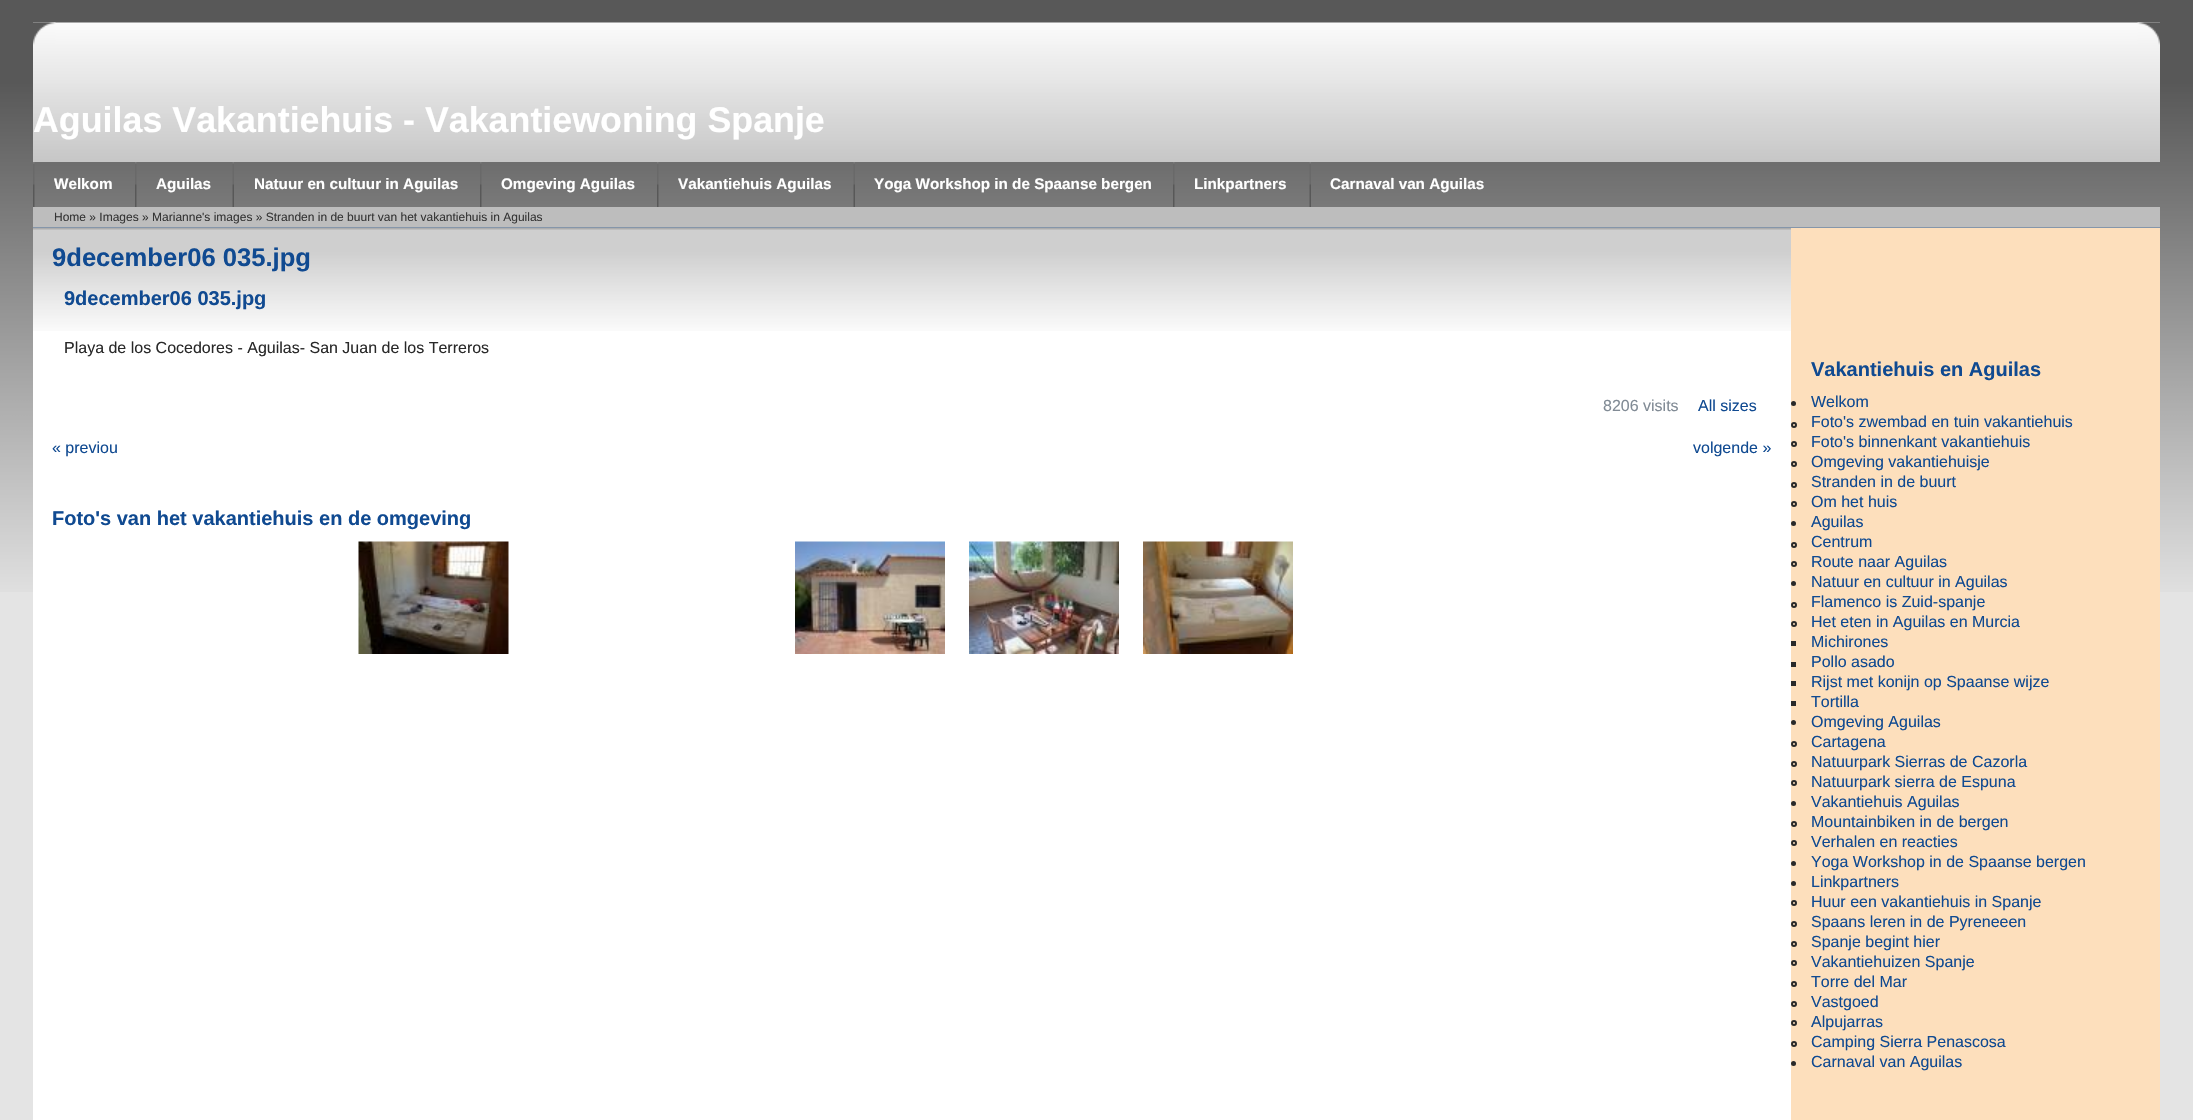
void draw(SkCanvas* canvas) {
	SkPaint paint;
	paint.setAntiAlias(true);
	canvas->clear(0xffe4e4e4);
	canvas->drawImageRect(SkImages::DeferredFromEncodedData(SkData::MakeFromFileName("img1.png")), SkRect::MakeXYWH(0, 0, 2193, 592), SkSamplingOptions());
	canvas->drawImageRect(SkImages::DeferredFromEncodedData(SkData::MakeFromFileName("img2.png")), SkRect::MakeXYWH(33, 22, 2127, 140), SkSamplingOptions());
	canvas->drawImageRect(SkImages::DeferredFromEncodedData(SkData::MakeFromFileName("img3.png")), SkRect::MakeXYWH(2137, 22, 23, 23), SkSamplingOptions());
	canvas->drawImageRect(SkImages::DeferredFromEncodedData(SkData::MakeFromFileName("img4.png")), SkRect::MakeXYWH(33, 22, 23, 23), SkSamplingOptions());
	SkFont f1(fontMgr->matchFamilyStyle("Liberation Sans", SkFontStyle::Bold()), 35.8);
	f1.setSubpixel(true);
	paint.setColor(0xffffffff);
	canvas->drawString("Aguilas Vakantiehuis - Vakantiewoning Spanje", 33, 132, f1, paint);
	canvas->drawImageRect(SkImages::DeferredFromEncodedData(SkData::MakeFromFileName("img5.png")), SkRect::MakeXYWH(33, 162, 2, 45), SkSamplingOptions());
	SkFont f2(fontMgr->matchFamilyStyle("Liberation Sans", SkFontStyle::Bold()), 15.25);
	f2.setSubpixel(true);
	canvas->drawString("Welkom", 54, 189, f2, paint);
	canvas->drawImageRect(SkImages::DeferredFromEncodedData(SkData::MakeFromFileName("img5.png")), SkRect::MakeXYWH(135, 162, 2, 45), SkSamplingOptions());
	canvas->drawString("Aguilas", 156, 189, f2, paint);
	canvas->drawImageRect(SkImages::DeferredFromEncodedData(SkData::MakeFromFileName("img6.png")), SkRect::MakeXYWH(232, 162, 2, 45), SkSamplingOptions());
	canvas->drawString("Natuur en cultuur in Aguilas", 254, 189, f2, paint);
	canvas->drawImageRect(SkImages::DeferredFromEncodedData(SkData::MakeFromFileName("img5.png")), SkRect::MakeXYWH(480, 162, 2, 45), SkSamplingOptions());
	canvas->drawString("Omgeving Aguilas", 501, 189, f2, paint);
	canvas->drawImageRect(SkImages::DeferredFromEncodedData(SkData::MakeFromFileName("img5.png")), SkRect::MakeXYWH(657, 162, 2, 45), SkSamplingOptions());
	canvas->drawString("Vakantiehuis Aguilas", 678, 189, f2, paint);
	canvas->drawImageRect(SkImages::DeferredFromEncodedData(SkData::MakeFromFileName("img6.png")), SkRect::MakeXYWH(853, 162, 2, 45), SkSamplingOptions());
	canvas->drawString("Yoga Workshop in de Spaanse bergen", 874, 189, f2, paint);
	canvas->drawImageRect(SkImages::DeferredFromEncodedData(SkData::MakeFromFileName("img5.png")), SkRect::MakeXYWH(1173, 162, 2, 45), SkSamplingOptions());
	canvas->drawString("Linkpartners", 1194, 189, f2, paint);
	canvas->drawImageRect(SkImages::DeferredFromEncodedData(SkData::MakeFromFileName("img6.png")), SkRect::MakeXYWH(1309, 162, 2, 45), SkSamplingOptions());
	canvas->drawString("Carnaval van Aguilas", 1330, 189, f2, paint);
	paint.setColor(0xffbdbdbd);
	canvas->drawRect(SkRect::MakeXYWH(33, 207, 2127, 20), paint);
	paint.setColor(0xff8596aa);
	canvas->drawRect(SkRect::MakeXYWH(33, 227, 2127, 1), paint);
	SkFont f3(fontMgr->matchFamilyStyle("Liberation Sans", SkFontStyle::Normal()), 12);
	f3.setSubpixel(true);
	paint.setColor(0xff353535);
	canvas->drawString("Home » Images » Marianne's images » Stranden in de buurt van het vakantiehuis in Aguilas", 54, 221, f3, paint);
	paint.setColor(0xffffffff);
	canvas->drawRect(SkRect::MakeXYWH(33, 331, 1758, 789), paint);
	canvas->drawImageRect(SkImages::DeferredFromEncodedData(SkData::MakeFromFileName("img7.png")), SkRect::MakeXYWH(33, 228, 1758, 103), SkSamplingOptions());
	SkFont f4(fontMgr->matchFamilyStyle("Liberation Sans", SkFontStyle::Bold()), 25.6);
	f4.setSubpixel(true);
	paint.setColor(0xff104a91);
	canvas->drawString("9december06 035.jpg", 52, 266, f4, paint);
	SkFont f5(fontMgr->matchFamilyStyle("Liberation Sans", SkFontStyle::Bold()), 20);
	f5.setSubpixel(true);
	canvas->drawString("9december06 035.jpg", 64, 305, f5, paint);
	SkFont f6(fontMgr->matchFamilyStyle("Liberation Sans", SkFontStyle::Normal()), 16);
	f6.setSubpixel(true);
	paint.setColor(0xff292929);
	canvas->drawString("Playa de los Cocedores - Aguilas- San Juan de los Terreros", 64, 353, f6, paint);
	paint.setColor(0xff818b95);
	canvas->drawString("8206 visits", 1603, 411, f6, paint);
	paint.setColor(0xff104a91);
	canvas->drawString("All sizes", 1698, 411, f6, paint);
	canvas->drawString("« previou", 52, 453, f6, paint);
	canvas->drawString("volgende »", 1693, 453, f6, paint);
	canvas->drawString("Foto's van het vakantiehuis en de omgeving", 52, 525, f5, paint);
	canvas->drawImageRect(SkImages::DeferredFromEncodedData(SkData::MakeFromFileName("img8.png")), SkRect::MakeXYWH(358, 541, 151, 113), SkSamplingOptions());
	canvas->drawImageRect(SkImages::DeferredFromEncodedData(SkData::MakeFromFileName("img9.png")), SkRect::MakeXYWH(795, 541, 150, 113), SkSamplingOptions());
	canvas->drawImageRect(SkImages::DeferredFromEncodedData(SkData::MakeFromFileName("img10.png")), SkRect::MakeXYWH(969, 541, 150, 113), SkSamplingOptions());
	canvas->drawImageRect(SkImages::DeferredFromEncodedData(SkData::MakeFromFileName("img11.png")), SkRect::MakeXYWH(1143, 541, 150, 113), SkSamplingOptions());
	paint.setColor(0xfffddfbc);
	canvas->drawRect(SkRect::MakeXYWH(1791, 228, 369, 892), paint);
	paint.setColor(0xff104a91);
	canvas->drawString("Vakantiehuis en Aguilas", 1811, 376, f5, paint);
	paint.setColor(0xff292929);
	canvas->drawCircle(1793.5, 403.5, 2.5, paint);
	paint.setColor(0xff104a91);
	canvas->drawString("Welkom", 1811, 407, f6, paint);
	paint.setStroke(true);
	paint.setStrokeWidth(2);
	paint.setColor(0xff292929);
	canvas->drawCircle(1794, 425, 2, paint);
	paint.setStroke(false);
	paint.setColor(0xff104a91);
	canvas->drawString("Foto's zwembad en tuin vakantiehuis", 1811, 427, f6, paint);
	paint.setStroke(true);
	paint.setColor(0xff292929);
	canvas->drawCircle(1794, 444, 2, paint);
	paint.setStroke(false);
	paint.setColor(0xff104a91);
	canvas->drawString("Foto's binnenkant vakantiehuis", 1811, 447, f6, paint);
	paint.setStroke(true);
	paint.setColor(0xff292929);
	canvas->drawCircle(1794, 464, 2, paint);
	paint.setStroke(false);
	paint.setColor(0xff104a91);
	canvas->drawString("Omgeving vakantiehuisje", 1811, 467, f6, paint);
	paint.setStroke(true);
	paint.setColor(0xff292929);
	canvas->drawCircle(1794, 485, 2, paint);
	paint.setStroke(false);
	paint.setColor(0xff104a91);
	canvas->drawString("Stranden in de buurt", 1811, 487, f6, paint);
	paint.setStroke(true);
	paint.setColor(0xff292929);
	canvas->drawCircle(1794, 504, 2, paint);
	paint.setStroke(false);
	paint.setColor(0xff104a91);
	canvas->drawString("Om het huis", 1811, 507, f6, paint);
	paint.setColor(0xff292929);
	canvas->drawCircle(1793.5, 523.5, 2.5, paint);
	paint.setColor(0xff104a91);
	canvas->drawString("Aguilas", 1811, 527, f6, paint);
	paint.setStroke(true);
	paint.setColor(0xff292929);
	canvas->drawCircle(1794, 545, 2, paint);
	paint.setStroke(false);
	paint.setColor(0xff104a91);
	canvas->drawString("Centrum", 1811, 547, f6, paint);
	paint.setStroke(true);
	paint.setColor(0xff292929);
	canvas->drawCircle(1794, 564, 2, paint);
	paint.setStroke(false);
	paint.setColor(0xff104a91);
	canvas->drawString("Route naar Aguilas", 1811, 567, f6, paint);
	paint.setColor(0xff292929);
	canvas->drawCircle(1793.5, 583.5, 2.5, paint);
	paint.setColor(0xff104a91);
	canvas->drawString("Natuur en cultuur in Aguilas", 1811, 587, f6, paint);
	paint.setStroke(true);
	paint.setColor(0xff292929);
	canvas->drawCircle(1794, 605, 2, paint);
	paint.setStroke(false);
	paint.setColor(0xff104a91);
	canvas->drawString("Flamenco is Zuid-spanje", 1811, 607, f6, paint);
	paint.setStroke(true);
	paint.setColor(0xff292929);
	canvas->drawCircle(1794, 624, 2, paint);
	paint.setStroke(false);
	paint.setColor(0xff104a91);
	canvas->drawString("Het eten in Aguilas en Murcia", 1811, 627, f6, paint);
	paint.setColor(0xff292929);
	canvas->drawRect(SkRect::MakeXYWH(1791, 641, 5, 5), paint);
	paint.setColor(0xff104a91);
	canvas->drawString("Michirones", 1811, 647, f6, paint);
	paint.setColor(0xff292929);
	canvas->drawRect(SkRect::MakeXYWH(1791, 662, 5, 5), paint);
	paint.setColor(0xff104a91);
	canvas->drawString("Pollo asado", 1811, 667, f6, paint);
	paint.setColor(0xff292929);
	canvas->drawRect(SkRect::MakeXYWH(1791, 681, 5, 5), paint);
	paint.setColor(0xff104a91);
	canvas->drawString("Rijst met konijn op Spaanse wijze", 1811, 687, f6, paint);
	paint.setColor(0xff292929);
	canvas->drawRect(SkRect::MakeXYWH(1791, 701, 5, 5), paint);
	paint.setColor(0xff104a91);
	canvas->drawString("Tortilla", 1811, 707, f6, paint);
	paint.setColor(0xff292929);
	canvas->drawCircle(1793.5, 722.5, 2.5, paint);
	paint.setColor(0xff104a91);
	canvas->drawString("Omgeving Aguilas", 1811, 727, f6, paint);
	paint.setStroke(true);
	paint.setColor(0xff292929);
	canvas->drawCircle(1794, 744, 2, paint);
	paint.setStroke(false);
	paint.setColor(0xff104a91);
	canvas->drawString("Cartagena", 1811, 747, f6, paint);
	paint.setStroke(true);
	paint.setColor(0xff292929);
	canvas->drawCircle(1794, 764, 2, paint);
	paint.setStroke(false);
	paint.setColor(0xff104a91);
	canvas->drawString("Natuurpark Sierras de Cazorla", 1811, 767, f6, paint);
	paint.setStroke(true);
	paint.setColor(0xff292929);
	canvas->drawCircle(1794, 783, 2, paint);
	paint.setStroke(false);
	paint.setColor(0xff104a91);
	canvas->drawString("Natuurpark sierra de Espuna", 1811, 787, f6, paint);
	paint.setColor(0xff292929);
	canvas->drawCircle(1793.5, 803.5, 2.5, paint);
	paint.setColor(0xff104a91);
	canvas->drawString("Vakantiehuis Aguilas", 1811, 807, f6, paint);
	paint.setStroke(true);
	paint.setColor(0xff292929);
	canvas->drawCircle(1794, 824, 2, paint);
	paint.setStroke(false);
	paint.setColor(0xff104a91);
	canvas->drawString("Mountainbiken in de bergen", 1811, 827, f6, paint);
	paint.setStroke(true);
	paint.setColor(0xff292929);
	canvas->drawCircle(1794, 843, 2, paint);
	paint.setStroke(false);
	paint.setColor(0xff104a91);
	canvas->drawString("Verhalen en reacties", 1811, 847, f6, paint);
	paint.setColor(0xff292929);
	canvas->drawCircle(1793.5, 863.5, 2.5, paint);
	paint.setColor(0xff104a91);
	canvas->drawString("Yoga Workshop in de Spaanse bergen", 1811, 867, f6, paint);
	paint.setColor(0xff292929);
	canvas->drawCircle(1793.5, 883.5, 2.5, paint);
	paint.setColor(0xff104a91);
	canvas->drawString("Linkpartners", 1811, 887, f6, paint);
	paint.setStroke(true);
	paint.setColor(0xff292929);
	canvas->drawCircle(1794, 903, 2, paint);
	paint.setStroke(false);
	paint.setColor(0xff104a91);
	canvas->drawString("Huur een vakantiehuis in Spanje", 1811, 907, f6, paint);
	paint.setStroke(true);
	paint.setColor(0xff292929);
	canvas->drawCircle(1794, 924, 2, paint);
	paint.setStroke(false);
	paint.setColor(0xff104a91);
	canvas->drawString("Spaans leren in de Pyreneeen", 1811, 927, f6, paint);
	paint.setStroke(true);
	paint.setColor(0xff292929);
	canvas->drawCircle(1794, 944, 2, paint);
	paint.setStroke(false);
	paint.setColor(0xff104a91);
	canvas->drawString("Spanje begint hier", 1811, 947, f6, paint);
	paint.setStroke(true);
	paint.setColor(0xff292929);
	canvas->drawCircle(1794, 963, 2, paint);
	paint.setStroke(false);
	paint.setColor(0xff104a91);
	canvas->drawString("Vakantiehuizen Spanje", 1811, 967, f6, paint);
	paint.setStroke(true);
	paint.setColor(0xff292929);
	canvas->drawCircle(1794, 984, 2, paint);
	paint.setStroke(false);
	paint.setColor(0xff104a91);
	canvas->drawString("Torre del Mar", 1811, 987, f6, paint);
	paint.setStroke(true);
	paint.setColor(0xff292929);
	canvas->drawCircle(1794, 1004, 2, paint);
	paint.setStroke(false);
	paint.setColor(0xff104a91);
	canvas->drawString("Vastgoed", 1811, 1007, f6, paint);
	paint.setStroke(true);
	paint.setColor(0xff292929);
	canvas->drawCircle(1794, 1023, 2, paint);
	paint.setStroke(false);
	paint.setColor(0xff104a91);
	canvas->drawString("Alpujarras", 1811, 1027, f6, paint);
	paint.setStroke(true);
	paint.setColor(0xff292929);
	canvas->drawCircle(1794, 1044, 2, paint);
	paint.setStroke(false);
	paint.setColor(0xff104a91);
	canvas->drawString("Camping Sierra Penascosa", 1811, 1047, f6, paint);
	paint.setColor(0xff292929);
	canvas->drawCircle(1793.5, 1063.5, 2.5, paint);
	paint.setColor(0xff104a91);
	canvas->drawString("Carnaval van Aguilas", 1811, 1067, f6, paint);
}
